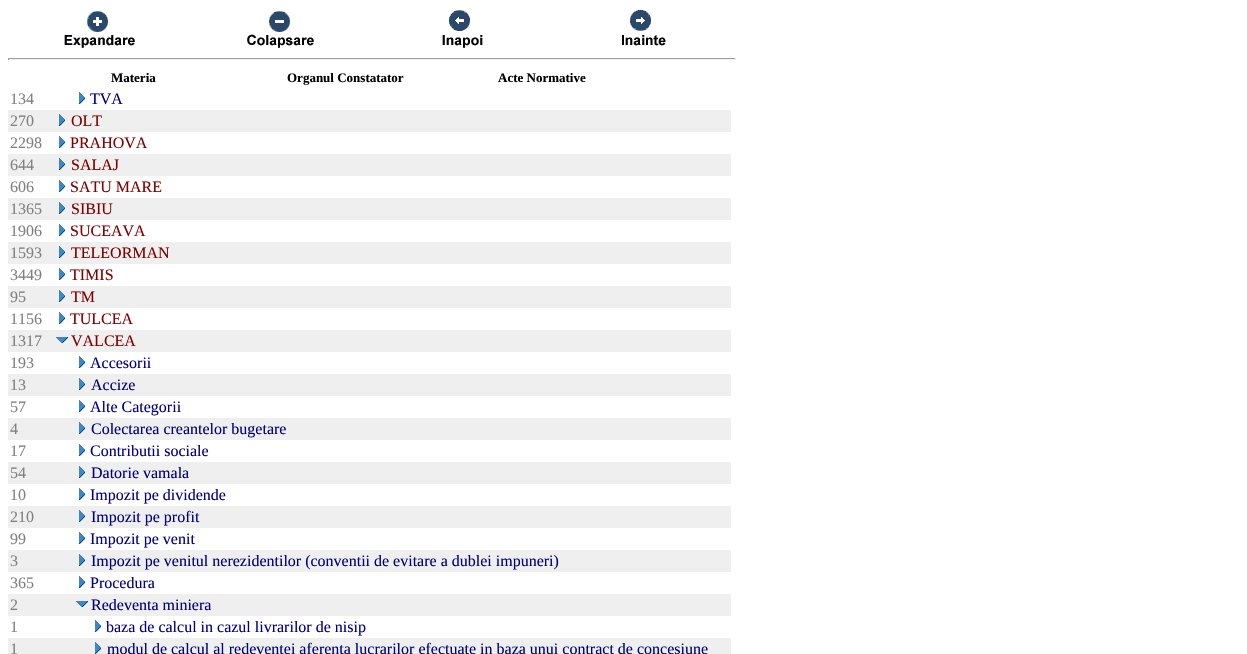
void draw(SkCanvas* canvas) {
	SkPaint paint;
	paint.setAntiAlias(true);
	canvas->clear(0xffffffff);
	canvas->drawImageRect(SkImages::DeferredFromEncodedData(SkData::MakeFromFileName("img1.png")), SkRect::MakeXYWH(64, 11, 71, 37), SkSamplingOptions());
	canvas->drawImageRect(SkImages::DeferredFromEncodedData(SkData::MakeFromFileName("img2.png")), SkRect::MakeXYWH(247, 11, 67, 37), SkSamplingOptions());
	canvas->drawImageRect(SkImages::DeferredFromEncodedData(SkData::MakeFromFileName("img3.png")), SkRect::MakeXYWH(442, 10, 41, 38), SkSamplingOptions());
	canvas->drawImageRect(SkImages::DeferredFromEncodedData(SkData::MakeFromFileName("img4.png")), SkRect::MakeXYWH(622, 10, 44, 36), SkSamplingOptions());
	paint.setColor(0xff9f9f9f);
	canvas->drawRect(SkRect::MakeXYWH(8, 58, 728, 1), paint);
	paint.setColor(0xffeeeeee);
	canvas->drawRect(SkRect::MakeXYWH(735, 58, 1, 2), paint);
	canvas->drawRect(SkRect::MakeXYWH(8, 59, 728, 1), paint);
	paint.setColor(0xff9f9f9f);
	canvas->drawRect(SkRect::MakeXYWH(8, 58, 1, 2), paint);
	SkFont f1(fontMgr->matchFamilyStyle("Liberation Serif", SkFontStyle::Bold()), 13);
	f1.setSubpixel(true);
	paint.setColor(0xff000000);
	canvas->drawString("Materia", 111, 82, f1, paint);
	canvas->drawString("Organul Constatator", 287, 82, f1, paint);
	canvas->drawString("Acte Normative", 498, 82, f1, paint);
	SkFont f2(fontMgr->matchFamilyStyle("Liberation Serif", SkFontStyle::Normal()), 16);
	f2.setSubpixel(true);
	paint.setColor(0xff808080);
	canvas->drawString("134", 10, 104, f2, paint);
	canvas->drawImageRect(SkImages::DeferredFromEncodedData(SkData::MakeFromFileName("img5.png")), SkRect::MakeXYWH(79, 92, 6, 12), SkSamplingOptions());
	paint.setColor(0xff000080);
	canvas->drawString("TVA", 90, 104, f2, paint);
	paint.setColor(0xffefefef);
	canvas->drawRect(SkRect::MakeXYWH(8, 110, 723, 22), paint);
	paint.setColor(0xff808080);
	canvas->drawString("270", 10, 126, f2, paint);
	canvas->drawImageRect(SkImages::DeferredFromEncodedData(SkData::MakeFromFileName("img6.png")), SkRect::MakeXYWH(59, 114, 6, 12), SkSamplingOptions());
	paint.setColor(0xff800000);
	canvas->drawString("OLT", 71, 126, f2, paint);
	paint.setColor(0xff808080);
	canvas->drawString("2298", 10, 148, f2, paint);
	canvas->drawImageRect(SkImages::DeferredFromEncodedData(SkData::MakeFromFileName("img5.png")), SkRect::MakeXYWH(59, 136, 6, 12), SkSamplingOptions());
	paint.setColor(0xff800000);
	canvas->drawString("PRAHOVA", 70, 148, f2, paint);
	paint.setColor(0xffefefef);
	canvas->drawRect(SkRect::MakeXYWH(8, 154, 723, 22), paint);
	paint.setColor(0xff808080);
	canvas->drawString("644", 10, 170, f2, paint);
	canvas->drawImageRect(SkImages::DeferredFromEncodedData(SkData::MakeFromFileName("img6.png")), SkRect::MakeXYWH(59, 158, 6, 12), SkSamplingOptions());
	paint.setColor(0xff800000);
	canvas->drawString("SALAJ", 71, 170, f2, paint);
	paint.setColor(0xff808080);
	canvas->drawString("606", 10, 192, f2, paint);
	canvas->drawImageRect(SkImages::DeferredFromEncodedData(SkData::MakeFromFileName("img5.png")), SkRect::MakeXYWH(59, 180, 6, 12), SkSamplingOptions());
	paint.setColor(0xff800000);
	canvas->drawString("SATU MARE", 70, 192, f2, paint);
	paint.setColor(0xffefefef);
	canvas->drawRect(SkRect::MakeXYWH(8, 198, 723, 22), paint);
	paint.setColor(0xff808080);
	canvas->drawString("1365", 10, 214, f2, paint);
	canvas->drawImageRect(SkImages::DeferredFromEncodedData(SkData::MakeFromFileName("img6.png")), SkRect::MakeXYWH(59, 202, 6, 12), SkSamplingOptions());
	paint.setColor(0xff800000);
	canvas->drawString("SIBIU", 71, 214, f2, paint);
	paint.setColor(0xff808080);
	canvas->drawString("1906", 10, 236, f2, paint);
	canvas->drawImageRect(SkImages::DeferredFromEncodedData(SkData::MakeFromFileName("img5.png")), SkRect::MakeXYWH(59, 224, 6, 12), SkSamplingOptions());
	paint.setColor(0xff800000);
	canvas->drawString("SUCEAVA", 70, 236, f2, paint);
	paint.setColor(0xffefefef);
	canvas->drawRect(SkRect::MakeXYWH(8, 242, 723, 22), paint);
	paint.setColor(0xff808080);
	canvas->drawString("1593", 10, 258, f2, paint);
	canvas->drawImageRect(SkImages::DeferredFromEncodedData(SkData::MakeFromFileName("img6.png")), SkRect::MakeXYWH(59, 246, 6, 12), SkSamplingOptions());
	paint.setColor(0xff800000);
	canvas->drawString("TELEORMAN", 71, 258, f2, paint);
	paint.setColor(0xff808080);
	canvas->drawString("3449", 10, 280, f2, paint);
	canvas->drawImageRect(SkImages::DeferredFromEncodedData(SkData::MakeFromFileName("img5.png")), SkRect::MakeXYWH(59, 268, 6, 12), SkSamplingOptions());
	paint.setColor(0xff800000);
	canvas->drawString("TIMIS", 70, 280, f2, paint);
	paint.setColor(0xffefefef);
	canvas->drawRect(SkRect::MakeXYWH(8, 286, 723, 22), paint);
	paint.setColor(0xff808080);
	canvas->drawString("95", 10, 302, f2, paint);
	canvas->drawImageRect(SkImages::DeferredFromEncodedData(SkData::MakeFromFileName("img6.png")), SkRect::MakeXYWH(59, 290, 6, 12), SkSamplingOptions());
	paint.setColor(0xff800000);
	canvas->drawString("TM", 71, 302, f2, paint);
	paint.setColor(0xff808080);
	canvas->drawString("1156", 10, 324, f2, paint);
	canvas->drawImageRect(SkImages::DeferredFromEncodedData(SkData::MakeFromFileName("img5.png")), SkRect::MakeXYWH(59, 312, 6, 12), SkSamplingOptions());
	paint.setColor(0xff800000);
	canvas->drawString("TULCEA", 70, 324, f2, paint);
	paint.setColor(0xffefefef);
	canvas->drawRect(SkRect::MakeXYWH(8, 330, 723, 22), paint);
	paint.setColor(0xff808080);
	canvas->drawString("1317", 10, 346, f2, paint);
	canvas->drawImageRect(SkImages::DeferredFromEncodedData(SkData::MakeFromFileName("img7.png")), SkRect::MakeXYWH(56, 337, 12, 6), SkSamplingOptions());
	paint.setColor(0xff800000);
	canvas->drawString("VALCEA", 71, 346, f2, paint);
	paint.setColor(0xff808080);
	canvas->drawString("193", 10, 368, f2, paint);
	canvas->drawImageRect(SkImages::DeferredFromEncodedData(SkData::MakeFromFileName("img5.png")), SkRect::MakeXYWH(79, 356, 6, 12), SkSamplingOptions());
	paint.setColor(0xff000080);
	canvas->drawString("Accesorii", 90, 368, f2, paint);
	paint.setColor(0xffefefef);
	canvas->drawRect(SkRect::MakeXYWH(8, 374, 723, 22), paint);
	paint.setColor(0xff808080);
	canvas->drawString("13", 10, 390, f2, paint);
	canvas->drawImageRect(SkImages::DeferredFromEncodedData(SkData::MakeFromFileName("img6.png")), SkRect::MakeXYWH(79, 378, 6, 12), SkSamplingOptions());
	paint.setColor(0xff000080);
	canvas->drawString("Accize", 91, 390, f2, paint);
	paint.setColor(0xff808080);
	canvas->drawString("57", 10, 412, f2, paint);
	canvas->drawImageRect(SkImages::DeferredFromEncodedData(SkData::MakeFromFileName("img5.png")), SkRect::MakeXYWH(79, 400, 6, 12), SkSamplingOptions());
	paint.setColor(0xff000080);
	canvas->drawString("Alte Categorii", 90, 412, f2, paint);
	paint.setColor(0xffefefef);
	canvas->drawRect(SkRect::MakeXYWH(8, 418, 723, 22), paint);
	paint.setColor(0xff808080);
	canvas->drawString("4", 10, 434, f2, paint);
	canvas->drawImageRect(SkImages::DeferredFromEncodedData(SkData::MakeFromFileName("img6.png")), SkRect::MakeXYWH(79, 422, 6, 12), SkSamplingOptions());
	paint.setColor(0xff000080);
	canvas->drawString("Colectarea creantelor bugetare", 91, 434, f2, paint);
	paint.setColor(0xff808080);
	canvas->drawString("17", 10, 456, f2, paint);
	canvas->drawImageRect(SkImages::DeferredFromEncodedData(SkData::MakeFromFileName("img5.png")), SkRect::MakeXYWH(79, 444, 6, 12), SkSamplingOptions());
	paint.setColor(0xff000080);
	canvas->drawString("Contributii sociale", 90, 456, f2, paint);
	paint.setColor(0xffefefef);
	canvas->drawRect(SkRect::MakeXYWH(8, 462, 723, 22), paint);
	paint.setColor(0xff808080);
	canvas->drawString("54", 10, 478, f2, paint);
	canvas->drawImageRect(SkImages::DeferredFromEncodedData(SkData::MakeFromFileName("img6.png")), SkRect::MakeXYWH(79, 466, 6, 12), SkSamplingOptions());
	paint.setColor(0xff000080);
	canvas->drawString("Datorie vamala", 91, 478, f2, paint);
	paint.setColor(0xff808080);
	canvas->drawString("10", 10, 500, f2, paint);
	canvas->drawImageRect(SkImages::DeferredFromEncodedData(SkData::MakeFromFileName("img5.png")), SkRect::MakeXYWH(79, 488, 6, 12), SkSamplingOptions());
	paint.setColor(0xff000080);
	canvas->drawString("Impozit pe dividende", 90, 500, f2, paint);
	paint.setColor(0xffefefef);
	canvas->drawRect(SkRect::MakeXYWH(8, 506, 723, 22), paint);
	paint.setColor(0xff808080);
	canvas->drawString("210", 10, 522, f2, paint);
	canvas->drawImageRect(SkImages::DeferredFromEncodedData(SkData::MakeFromFileName("img6.png")), SkRect::MakeXYWH(79, 510, 6, 12), SkSamplingOptions());
	paint.setColor(0xff000080);
	canvas->drawString("Impozit pe profit", 91, 522, f2, paint);
	paint.setColor(0xff808080);
	canvas->drawString("99", 10, 544, f2, paint);
	canvas->drawImageRect(SkImages::DeferredFromEncodedData(SkData::MakeFromFileName("img5.png")), SkRect::MakeXYWH(79, 532, 6, 12), SkSamplingOptions());
	paint.setColor(0xff000080);
	canvas->drawString("Impozit pe venit", 90, 544, f2, paint);
	paint.setColor(0xffefefef);
	canvas->drawRect(SkRect::MakeXYWH(8, 550, 723, 22), paint);
	paint.setColor(0xff808080);
	canvas->drawString("3", 10, 566, f2, paint);
	canvas->drawImageRect(SkImages::DeferredFromEncodedData(SkData::MakeFromFileName("img6.png")), SkRect::MakeXYWH(79, 554, 6, 12), SkSamplingOptions());
	paint.setColor(0xff000080);
	canvas->drawString("Impozit pe venitul nerezidentilor (conventii de evitare a dublei impuneri)", 91, 566, f2, paint);
	paint.setColor(0xff808080);
	canvas->drawString("365", 10, 588, f2, paint);
	canvas->drawImageRect(SkImages::DeferredFromEncodedData(SkData::MakeFromFileName("img5.png")), SkRect::MakeXYWH(79, 576, 6, 12), SkSamplingOptions());
	paint.setColor(0xff000080);
	canvas->drawString("Procedura", 90, 588, f2, paint);
	paint.setColor(0xffefefef);
	canvas->drawRect(SkRect::MakeXYWH(8, 594, 723, 22), paint);
	paint.setColor(0xff808080);
	canvas->drawString("2", 10, 610, f2, paint);
	canvas->drawImageRect(SkImages::DeferredFromEncodedData(SkData::MakeFromFileName("img7.png")), SkRect::MakeXYWH(76, 601, 12, 6), SkSamplingOptions());
	paint.setColor(0xff000080);
	canvas->drawString("Redeventa miniera", 91, 610, f2, paint);
	paint.setColor(0xff808080);
	canvas->drawString("1", 10, 632, f2, paint);
	canvas->drawImageRect(SkImages::DeferredFromEncodedData(SkData::MakeFromFileName("img5.png")), SkRect::MakeXYWH(95, 620, 6, 12), SkSamplingOptions());
	paint.setColor(0xff000080);
	canvas->drawString("baza de calcul in cazul livrarilor de nisip", 106, 632, f2, paint);
	paint.setColor(0xffefefef);
	canvas->drawRect(SkRect::MakeXYWH(8, 638, 723, 16), paint);
	paint.setColor(0xff808080);
	canvas->drawString("1", 10, 654, f2, paint);
	canvas->drawImageRect(SkImages::DeferredFromEncodedData(SkData::MakeFromFileName("img6.png")), SkRect::MakeXYWH(95, 642, 6, 12), SkSamplingOptions());
	paint.setColor(0xff000080);
	canvas->drawString("modul de calcul al redeventei aferenta lucrarilor efectuate in baza unui contract de concesiune", 107, 654, f2, paint);
}
